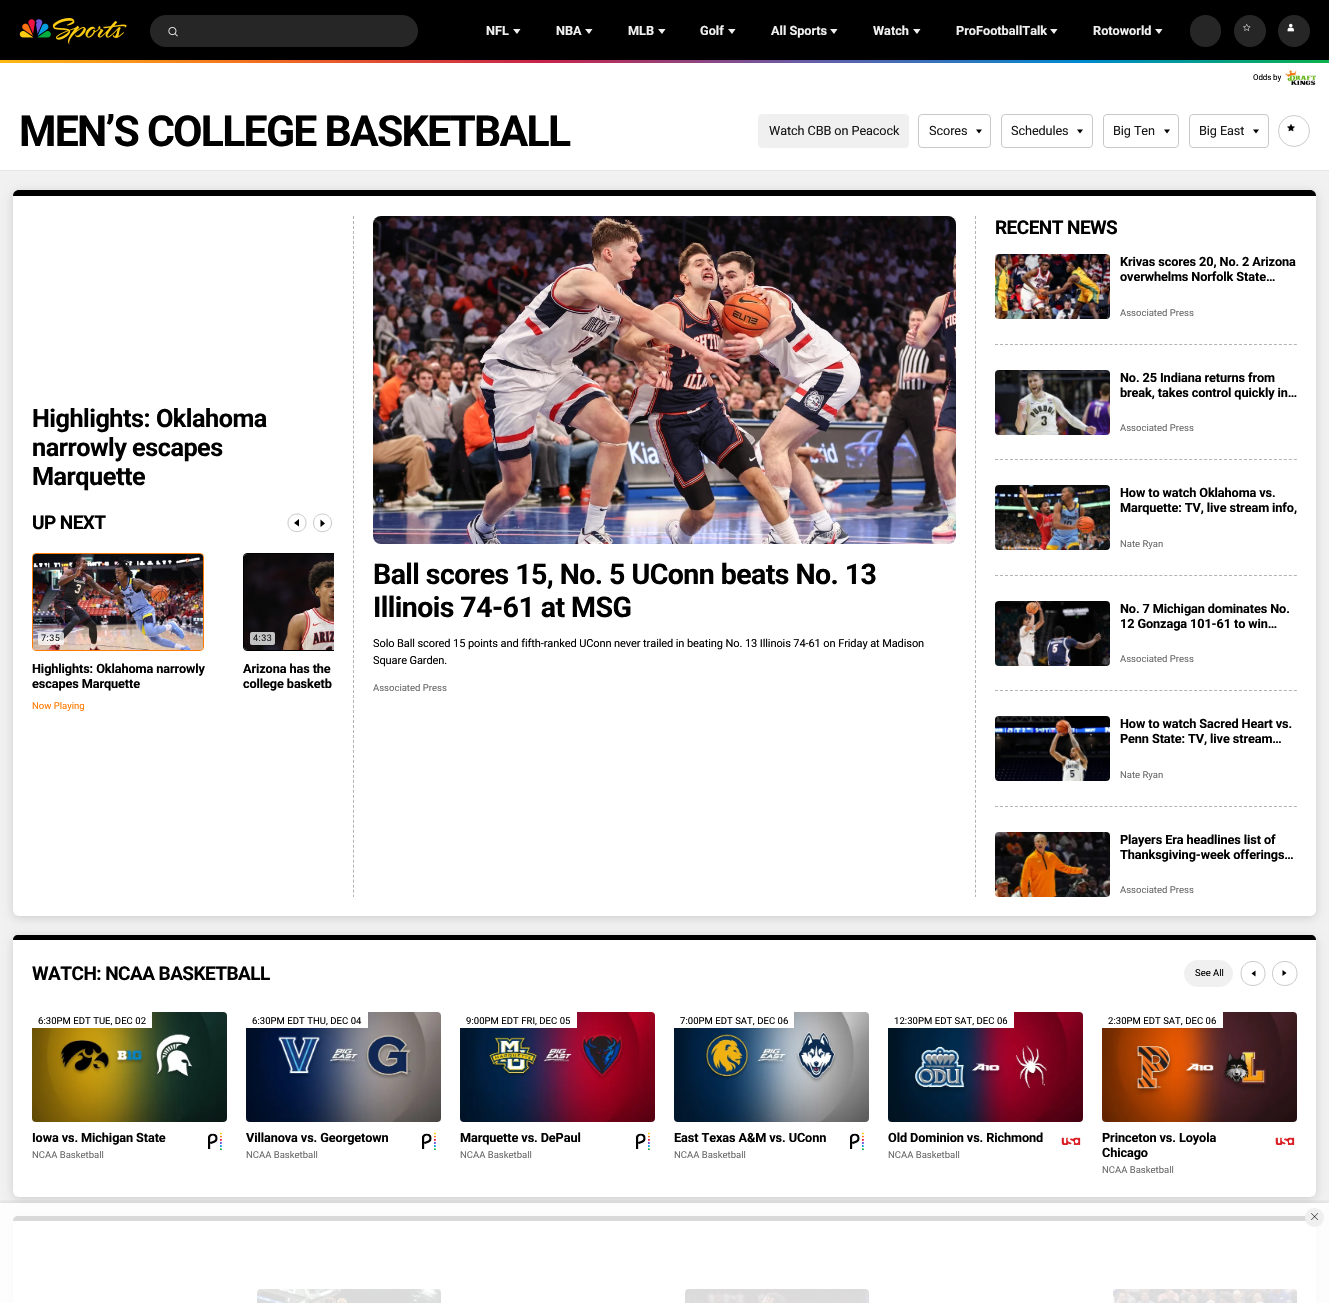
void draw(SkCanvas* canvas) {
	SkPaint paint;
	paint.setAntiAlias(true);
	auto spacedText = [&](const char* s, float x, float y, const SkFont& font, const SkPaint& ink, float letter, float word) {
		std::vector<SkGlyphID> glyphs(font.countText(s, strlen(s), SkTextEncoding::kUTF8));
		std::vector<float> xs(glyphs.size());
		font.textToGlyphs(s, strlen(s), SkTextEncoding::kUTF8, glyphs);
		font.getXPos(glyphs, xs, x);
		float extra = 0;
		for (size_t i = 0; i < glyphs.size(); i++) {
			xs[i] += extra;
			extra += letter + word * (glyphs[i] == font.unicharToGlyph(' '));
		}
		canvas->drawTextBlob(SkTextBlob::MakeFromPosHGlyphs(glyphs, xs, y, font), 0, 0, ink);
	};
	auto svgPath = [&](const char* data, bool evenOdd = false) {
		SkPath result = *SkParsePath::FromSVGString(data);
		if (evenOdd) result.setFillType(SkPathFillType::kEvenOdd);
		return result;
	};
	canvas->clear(0xfff1f1f1);
	paint.setColor(0xff000000);
	canvas->drawRect(SkRect::MakeXYWH(0, 0, 1329, 60), paint);
	canvas->drawImageRect(SkImages::DeferredFromEncodedData(SkData::MakeFromFileName("img1.png")), SkRect::MakeXYWH(19, 18, 108, 26), SkSamplingOptions());
	paint.setColor(0xff262626);
	canvas->drawRoundRect(SkRect::MakeXYWH(150, 15, 268, 32), 16, 16, paint);
	canvas->drawImageRect(SkImages::DeferredFromEncodedData(SkData::MakeFromFileName("img2.png")), SkRect::MakeXYWH(168, 27, 10, 10), SkSamplingOptions());
	SkFont f1(fontMgr->matchFamilyStyle("Roboto", SkFontStyle::Bold()), 12.7);
	f1.setSubpixel(true);
	paint.setColor(0xfff0f0f0);
	canvas->drawString("NFL", 486, 35, f1, paint);
	canvas->drawPath(svgPath("M517 34L513 29H520.5Z"), paint);
	canvas->drawString("NBA", 556, 35, f1, paint);
	canvas->drawPath(svgPath("M589 34L585 29H592.5Z"), paint);
	canvas->drawString("MLB", 628, 35, f1, paint);
	canvas->drawPath(svgPath("M662 34L658 29H665.5Z"), paint);
	canvas->drawString("Golf", 700, 35, f1, paint);
	canvas->drawPath(svgPath("M732 34L728 29H735.5Z"), paint);
	canvas->drawString("All Sports", 771, 35, f1, paint);
	canvas->drawPath(svgPath("M834 34L830 29H837.5Z"), paint);
	canvas->drawString("Watch", 873, 35, f1, paint);
	canvas->drawPath(svgPath("M917 34L913 29H920.5Z"), paint);
	canvas->drawString("ProFootballTalk", 956, 35, f1, paint);
	canvas->drawPath(svgPath("M1054 34L1050 29H1057.5Z"), paint);
	canvas->drawString("Rotoworld", 1093, 35, f1, paint);
	canvas->drawPath(svgPath("M1159 34L1155 29H1162.5Z"), paint);
	paint.setColor(0xff262626);
	canvas->drawRoundRect(SkRect::MakeXYWH(1190, 15, 31, 32), 15.5, 15.5, paint);
	canvas->drawCircle(1250, 31, 16, paint);
	canvas->drawImageRect(SkImages::DeferredFromEncodedData(SkData::MakeFromFileName("img3.png")), SkRect::MakeXYWH(1243, 23, 8, 8), SkSamplingOptions());
	canvas->drawCircle(1294, 31, 16, paint);
	canvas->drawImageRect(SkImages::DeferredFromEncodedData(SkData::MakeFromFileName("img4.png")), SkRect::MakeXYWH(1287, 23, 7, 9), SkSamplingOptions());
	canvas->drawImageRect(SkImages::DeferredFromEncodedData(SkData::MakeFromFileName("img5.png")), SkRect::MakeXYWH(0, 60, 1329, 3), SkSamplingOptions());
	paint.setColor(0xffffffff);
	canvas->drawRect(SkRect::MakeXYWH(0, 63, 1329, 107), paint);
	SkFont f2(fontMgr->matchFamilyStyle("Roboto", SkFontStyle::Normal()), 8);
	f2.setSubpixel(true);
	paint.setColor(0xff000000);
	spacedText("Odds by", 1253, 80, f2, paint, -0.11, 0);
	canvas->drawImageRect(SkImages::DeferredFromEncodedData(SkData::MakeFromFileName("img6.png")), SkRect::MakeXYWH(1285, 70, 31, 15), SkSamplingOptions());
	paint.setColor(0xffe6e6e6);
	canvas->drawRect(SkRect::MakeXYWH(0, 170, 1329, 1), paint);
	SkFont f3(fontMgr->matchFamilyStyle("Roboto", SkFontStyle::Bold()), 42.75);
	f3.setSubpixel(true);
	paint.setColor(0xff000000);
	spacedText("MEN’S COLLEGE BASKETBALL", 19, 146, f3, paint, -1.75, 0);
	paint.setColor(0xfff0f0f0);
	canvas->drawRoundRect(SkRect::MakeXYWH(758.5, 114.5, 150, 33), 3.5, 3.5, paint);
	paint.setStroke(true);
	paint.setStrokeWidth(1);
	canvas->drawRoundRect(SkRect::MakeXYWH(758.5, 114.5, 150, 33), 3.5, 3.5, paint);
	SkFont f4(fontMgr->matchFamilyStyle("Roboto", SkFontStyle::Normal()), 12.7);
	f4.setSubpixel(true);
	paint.setStroke(false);
	paint.setColor(0xff181818);
	spacedText("Watch CBB on Peacock", 769, 135, f4, paint, -0.1, 0);
	paint.setStroke(true);
	paint.setColor(0xffc9c9c9);
	canvas->drawRoundRect(SkRect::MakeXYWH(918.5, 114.5, 72, 33), 3.5, 3.5, paint);
	paint.setStroke(false);
	paint.setColor(0xff181818);
	spacedText("Scores", 929, 135, f4, paint, -0.1, 0);
	paint.setColor(0xff000000);
	canvas->drawPath(svgPath("M979 133.5L976 129.5H982Z"), paint);
	paint.setStroke(true);
	paint.setColor(0xffc9c9c9);
	canvas->drawRoundRect(SkRect::MakeXYWH(1001.5, 114.5, 91, 33), 3.5, 3.5, paint);
	paint.setStroke(false);
	paint.setColor(0xff181818);
	spacedText("Schedules", 1011, 135, f4, paint, -0.1, 0);
	paint.setColor(0xff000000);
	canvas->drawPath(svgPath("M1080 133.5L1077 129.5H1083Z"), paint);
	paint.setStroke(true);
	paint.setColor(0xffc9c9c9);
	canvas->drawRoundRect(SkRect::MakeXYWH(1103.5, 114.5, 75, 33), 3.5, 3.5, paint);
	paint.setStroke(false);
	paint.setColor(0xff181818);
	spacedText("Big Ten", 1113, 135, f4, paint, -0.1, 0);
	paint.setColor(0xff000000);
	canvas->drawPath(svgPath("M1167 133.5L1164 129.5H1170Z"), paint);
	paint.setStroke(true);
	paint.setColor(0xffc9c9c9);
	canvas->drawRoundRect(SkRect::MakeXYWH(1189.5, 114.5, 79, 33), 3.5, 3.5, paint);
	paint.setStroke(false);
	paint.setColor(0xff181818);
	spacedText("Big East", 1199, 135, f4, paint, -0.1, 0);
	paint.setColor(0xff000000);
	canvas->drawPath(svgPath("M1256 133.5L1253 129.5H1259Z"), paint);
	paint.setStroke(true);
	paint.setColor(0xffcccccc);
	canvas->drawCircle(1294, 131, 15.5, paint);
	canvas->drawImageRect(SkImages::DeferredFromEncodedData(SkData::MakeFromFileName("img7.png")), SkRect::MakeXYWH(1287, 124, 8, 8), SkSamplingOptions());
	paint.setStroke(false);
	paint.setColor(0x26000000);
	paint.setMaskFilter(SkMaskFilter::MakeBlur(kNormal_SkBlurStyle, 5));
	canvas->drawRoundRect(SkRect::MakeXYWH(13, 192, 1303, 726), 6, 6, paint);
	paint.setMaskFilter(nullptr);
	paint.setColor(0xffffffff);
	canvas->drawRoundRect(SkRect::MakeXYWH(13, 190, 1303, 726), 6, 6, paint);
	paint.setColor(0xff000000);
	canvas->drawPath(svgPath("M19 190H1310C1313.5 190 1316 192.5 1316 196H13C13 192.5 15.5 190 19 190Z"), paint);
	SkFont f5(fontMgr->matchFamilyStyle("Roboto", SkFontStyle::Bold()), 25.25);
	f5.setSubpixel(true);
	spacedText("Highlights: Oklahoma", 32, 427, f5, paint, -0.5, 0);
	spacedText("narrowly escapes", 32, 456, f5, paint, -0.5, 0);
	spacedText("Marquette", 32, 485, f5, paint, -0.5, 0);
	SkFont f6(fontMgr->matchFamilyStyle("Roboto", SkFontStyle::Bold()), 19);
	f6.setSubpixel(true);
	spacedText("UP NEXT", 32, 529, f6, paint, -0.55, 0);
	paint.setStroke(true);
	paint.setColor(0xffc9c9c9);
	canvas->drawPath(svgPath("M306 523C306 534.5 288 534.5 288 523C288 511 306 511 306 523Z"), paint);
	paint.setStroke(false);
	paint.setColor(0xff000000);
	canvas->drawPath(svgPath("M294 523L299 519V526.5Z"), paint);
	paint.setStroke(true);
	paint.setColor(0xffc9c9c9);
	canvas->drawPath(svgPath("M313.5 523C313.5 511 331.5 511 331.5 523C331.5 534.5 313.5 534.5 313.5 523Z"), paint);
	paint.setStroke(false);
	paint.setColor(0xff000000);
	canvas->drawPath(svgPath("M325 523.5L320.5 527V519.5Z"), paint);
	paint.setStroke(true);
	paint.setColor(0xffff7a00);
	canvas->drawRoundRect(SkRect::MakeXYWH(32.5, 553.5, 171, 97), 3.5, 3.5, paint);
	canvas->drawImageRect(SkImages::DeferredFromEncodedData(SkData::MakeFromFileName("img8.png")), SkRect::MakeXYWH(33, 554, 170, 96), SkSamplingOptions());
	paint.setStroke(false);
	paint.setColor(0xbfffffff);
	canvas->drawRoundRect(SkRect::MakeXYWH(38, 632, 26, 13), 2, 2, paint);
	SkFont f7(fontMgr->matchFamilyStyle("Roboto", SkFontStyle::Normal()), 9);
	f7.setSubpixel(true);
	paint.setColor(0xff181818);
	spacedText("7:35", 41, 641, f7, paint, 0.5, 0);
	paint.setColor(0xff000000);
	spacedText("Highlights: Oklahoma narrowly", 32, 673, f1, paint, -0.1, 0);
	spacedText("escapes Marquette", 32, 688, f1, paint, -0.1, 0);
	SkFont f8(fontMgr->matchFamilyStyle("Roboto", SkFontStyle::Normal()), 9.5);
	f8.setSubpixel(true);
	paint.setColor(0xffff7a00);
	canvas->drawString("Now Playing", 32, 709, f8, paint);
	paint.setStroke(true);
	paint.setColor(0xffb3b3b3);
	paint.setPathEffect(SkDashPathEffect::Make({{3, 1.99f}}, 0));
	canvas->drawPath(svgPath("M353.5 216V897"), paint);
	paint.setPathEffect(nullptr);
	canvas->save();
	canvas->clipRect(SkRect::MakeXYWH(32, 553, 302, 344));
	paint.setColor(0xff000000);
	canvas->drawRoundRect(SkRect::MakeXYWH(243.5, 553.5, 172, 97), 3.5, 3.5, paint);
	canvas->restore();
	canvas->drawImageRect(SkImages::DeferredFromEncodedData(SkData::MakeFromFileName("img9.png")), SkRect::MakeXYWH(244, 554, 90, 96), SkSamplingOptions());
	paint.setStroke(false);
	paint.setColor(0xbfffffff);
	canvas->drawRoundRect(SkRect::MakeXYWH(250, 632, 25, 13), 2, 2, paint);
	paint.setColor(0xff181818);
	spacedText("4:33", 253, 641, f7, paint, 0.5, 0);
	paint.setColor(0xff000000);
	spacedText("Arizona has the", 243, 673, f1, paint, -0.1, 0);
	spacedText("college basketb", 243, 688, f1, paint, -0.1, 0);
	paint.setStroke(true);
	paint.setColor(0xffb3b3b3);
	paint.setPathEffect(SkDashPathEffect::Make({{3, 1.99f}}, 0));
	canvas->drawPath(svgPath("M975.5 216V897"), paint);
	paint.setPathEffect(nullptr);
	canvas->drawImageRect(SkImages::DeferredFromEncodedData(SkData::MakeFromFileName("img10.png")), SkRect::MakeXYWH(373, 216, 583, 328), SkSamplingOptions());
	SkFont f9(fontMgr->matchFamilyStyle("Roboto", SkFontStyle::Bold()), 28.5);
	f9.setSubpixel(true);
	paint.setStroke(false);
	paint.setColor(0xff000000);
	spacedText("Ball scores 15, No. 5 UConn beats No. 13", 373, 584, f9, paint, -0.55, 0);
	spacedText("Illinois 74-61 at MSG", 373, 617, f9, paint, -0.55, 0);
	SkFont f10(fontMgr->matchFamilyStyle("Roboto", SkFontStyle::Normal()), 11.05);
	f10.setSubpixel(true);
	spacedText("Solo Ball scored 15 points and fifth-ranked UConn never trailed in beating No. 13 Illinois 74-61 on Friday at Madison", 373, 647, f10, paint, -0.11, 0);
	spacedText("Square Garden.", 373, 664, f10, paint, -0.11, 0);
	paint.setColor(0xff6a6a6a);
	canvas->drawString("Associated Press", 373, 691, f8, paint);
	paint.setColor(0xff000000);
	spacedText("RECENT NEWS", 995, 234, f6, paint, -0.55, 0);
	canvas->drawImageRect(SkImages::DeferredFromEncodedData(SkData::MakeFromFileName("img11.png")), SkRect::MakeXYWH(995, 254, 115, 65), SkSamplingOptions());
	spacedText("Krivas scores 20, No. 2 Arizona", 1120, 266, f1, paint, -0.1, 0);
	spacedText("overwhelms Norfolk State…", 1120, 281, f1, paint, -0.1, 0);
	paint.setColor(0xff6a6a6a);
	canvas->drawString("Associated Press", 1120, 316, f8, paint);
	paint.setStroke(true);
	paint.setColor(0xffb3b3b3);
	paint.setPathEffect(SkDashPathEffect::Make({{3, 1.98f}}, 0));
	canvas->drawPath(svgPath("M995 344.5H1297"), paint);
	paint.setPathEffect(nullptr);
	canvas->drawImageRect(SkImages::DeferredFromEncodedData(SkData::MakeFromFileName("img12.png")), SkRect::MakeXYWH(995, 370, 115, 65), SkSamplingOptions());
	paint.setStroke(false);
	paint.setColor(0xff000000);
	spacedText("No. 25 Indiana returns from", 1120, 382, f1, paint, -0.1, 0);
	spacedText("break, takes control quickly in…", 1120, 397, f1, paint, -0.1, 0);
	paint.setColor(0xff6a6a6a);
	canvas->drawString("Associated Press", 1120, 431, f8, paint);
	paint.setStroke(true);
	paint.setColor(0xffb3b3b3);
	paint.setPathEffect(SkDashPathEffect::Make({{3, 1.98f}}, 0));
	canvas->drawPath(svgPath("M995 459.5H1297"), paint);
	paint.setPathEffect(nullptr);
	canvas->drawImageRect(SkImages::DeferredFromEncodedData(SkData::MakeFromFileName("img13.png")), SkRect::MakeXYWH(995, 485, 115, 65), SkSamplingOptions());
	paint.setStroke(false);
	paint.setColor(0xff000000);
	spacedText("How to watch Oklahoma vs.", 1120, 497, f1, paint, -0.1, 0);
	spacedText("Marquette: TV, live stream info,", 1120, 512, f1, paint, -0.1, 0);
	paint.setColor(0xff6a6a6a);
	canvas->drawString("Nate Ryan", 1120, 547, f8, paint);
	paint.setStroke(true);
	paint.setColor(0xffb3b3b3);
	paint.setPathEffect(SkDashPathEffect::Make({{3, 1.98f}}, 0));
	canvas->drawPath(svgPath("M995 575.5H1297"), paint);
	paint.setPathEffect(nullptr);
	canvas->drawImageRect(SkImages::DeferredFromEncodedData(SkData::MakeFromFileName("img14.png")), SkRect::MakeXYWH(995, 601, 115, 65), SkSamplingOptions());
	paint.setStroke(false);
	paint.setColor(0xff000000);
	spacedText("No. 7 Michigan dominates No.", 1120, 613, f1, paint, -0.1, 0);
	spacedText("12 Gonzaga 101-61 to win…", 1120, 628, f1, paint, -0.1, 0);
	paint.setColor(0xff6a6a6a);
	canvas->drawString("Associated Press", 1120, 662, f8, paint);
	paint.setStroke(true);
	paint.setColor(0xffb3b3b3);
	paint.setPathEffect(SkDashPathEffect::Make({{3, 1.98f}}, 0));
	canvas->drawPath(svgPath("M995 690.5H1297"), paint);
	paint.setPathEffect(nullptr);
	canvas->drawImageRect(SkImages::DeferredFromEncodedData(SkData::MakeFromFileName("img15.png")), SkRect::MakeXYWH(995, 716, 115, 65), SkSamplingOptions());
	paint.setStroke(false);
	paint.setColor(0xff000000);
	spacedText("How to watch Sacred Heart vs.", 1120, 728, f1, paint, -0.1, 0);
	spacedText("Penn State: TV, live stream…", 1120, 743, f1, paint, -0.1, 0);
	paint.setColor(0xff6a6a6a);
	canvas->drawString("Nate Ryan", 1120, 778, f8, paint);
	paint.setStroke(true);
	paint.setColor(0xffb3b3b3);
	paint.setPathEffect(SkDashPathEffect::Make({{3, 1.98f}}, 0));
	canvas->drawPath(svgPath("M995 806.5H1297"), paint);
	paint.setPathEffect(nullptr);
	canvas->drawImageRect(SkImages::DeferredFromEncodedData(SkData::MakeFromFileName("img16.png")), SkRect::MakeXYWH(995, 832, 115, 65), SkSamplingOptions());
	paint.setStroke(false);
	paint.setColor(0xff000000);
	spacedText("Players Era headlines list of", 1120, 844, f1, paint, -0.1, 0);
	spacedText("Thanksgiving-week offerings…", 1120, 859, f1, paint, -0.1, 0);
	paint.setColor(0xff6a6a6a);
	canvas->drawString("Associated Press", 1120, 893, f8, paint);
	paint.setColor(0x26000000);
	paint.setMaskFilter(SkMaskFilter::MakeBlur(kNormal_SkBlurStyle, 5));
	canvas->drawRoundRect(SkRect::MakeXYWH(13, 937, 1303, 262), 6, 6, paint);
	paint.setMaskFilter(nullptr);
	paint.setColor(0xffffffff);
	canvas->drawRoundRect(SkRect::MakeXYWH(13, 935, 1303, 262), 6, 6, paint);
	paint.setColor(0xff000000);
	canvas->drawPath(svgPath("M18 935H1311C1314 935 1316 937 1316 940H13C13 937 15 935 18 935Z"), paint);
	spacedText("WATCH: NCAA BASKETBALL", 32, 980, f6, paint, -0.55, 0);
	paint.setColor(0xfff0f0f0);
	canvas->drawRoundRect(SkRect::MakeXYWH(1184.5, 960.5, 48, 26), 13, 13, paint);
	paint.setStroke(true);
	canvas->drawRoundRect(SkRect::MakeXYWH(1184.5, 960.5, 48, 26), 13, 13, paint);
	paint.setStroke(false);
	paint.setColor(0xff000000);
	canvas->drawString("See All", 1195, 976, f8, paint);
	paint.setStroke(true);
	paint.setColor(0xffc9c9c9);
	canvas->drawPath(svgPath("M1265 973.5C1265 989.5 1241 989.5 1241 973.5C1241 957.5 1265 957.5 1265 973.5Z"), paint);
	paint.setStroke(false);
	paint.setColor(0xff000000);
	canvas->drawPath(svgPath("M1251.5 973.5L1255.5 970.5V976.5Z"), paint);
	paint.setStroke(true);
	paint.setColor(0xffc9c9c9);
	canvas->drawPath(svgPath("M1272.5 973.5C1272.5 957.5 1297 957.5 1297 973.5C1297 989.5 1272.5 989.5 1272.5 973.5Z"), paint);
	paint.setStroke(false);
	paint.setColor(0xff000000);
	canvas->drawPath(svgPath("M1286.5 973L1282.5 976V970Z"), paint);
	canvas->drawImageRect(SkImages::DeferredFromEncodedData(SkData::MakeFromFileName("img17.png")), SkRect::MakeXYWH(32, 1012, 195, 110), SkSamplingOptions());
	paint.setColor(0xffffffff);
	canvas->drawRect(SkRect::MakeXYWH(32, 1012, 120, 16), paint);
	paint.setColor(0xff000000);
	spacedText("6:30PM EDT TUE, DEC 02", 38, 1024, f8, paint, 0.05, 0);
	spacedText("Iowa vs. Michigan State", 32, 1142, f1, paint, -0.1, 0);
	canvas->drawImageRect(SkImages::DeferredFromEncodedData(SkData::MakeFromFileName("img18.png")), SkRect::MakeXYWH(208, 1132, 14, 18), SkSamplingOptions());
	paint.setColor(0xff6a6a6a);
	canvas->drawString("NCAA Basketball", 32, 1158, f8, paint);
	canvas->drawImageRect(SkImages::DeferredFromEncodedData(SkData::MakeFromFileName("img19.png")), SkRect::MakeXYWH(246, 1012, 195, 110), SkSamplingOptions());
	paint.setColor(0xffffffff);
	canvas->drawRect(SkRect::MakeXYWH(246, 1012, 122, 16), paint);
	paint.setColor(0xff000000);
	spacedText("6:30PM EDT THU, DEC 04", 252, 1024, f8, paint, 0.05, 0);
	spacedText("Villanova vs. Georgetown", 246, 1142, f1, paint, -0.1, 0);
	canvas->drawImageRect(SkImages::DeferredFromEncodedData(SkData::MakeFromFileName("img18.png")), SkRect::MakeXYWH(422, 1132, 14, 18), SkSamplingOptions());
	paint.setColor(0xff6a6a6a);
	canvas->drawString("NCAA Basketball", 246, 1158, f8, paint);
	canvas->drawImageRect(SkImages::DeferredFromEncodedData(SkData::MakeFromFileName("img20.png")), SkRect::MakeXYWH(460, 1012, 195, 110), SkSamplingOptions());
	paint.setColor(0xffffffff);
	canvas->drawRect(SkRect::MakeXYWH(460, 1012, 117, 16), paint);
	paint.setColor(0xff000000);
	spacedText("9:00PM EDT FRI, DEC 05", 466, 1024, f8, paint, 0.05, 0);
	spacedText("Marquette vs. DePaul", 460, 1142, f1, paint, -0.1, 0);
	canvas->drawImageRect(SkImages::DeferredFromEncodedData(SkData::MakeFromFileName("img18.png")), SkRect::MakeXYWH(636, 1132, 14, 18), SkSamplingOptions());
	paint.setColor(0xff6a6a6a);
	canvas->drawString("NCAA Basketball", 460, 1158, f8, paint);
	canvas->drawImageRect(SkImages::DeferredFromEncodedData(SkData::MakeFromFileName("img21.png")), SkRect::MakeXYWH(674, 1012, 195, 110), SkSamplingOptions());
	paint.setColor(0xffffffff);
	canvas->drawRect(SkRect::MakeXYWH(674, 1012, 120, 16), paint);
	paint.setColor(0xff000000);
	spacedText("7:00PM EDT SAT, DEC 06", 680, 1024, f8, paint, 0.05, 0);
	spacedText("East Texas A&M vs. UConn", 674, 1142, f1, paint, -0.1, 0);
	canvas->drawImageRect(SkImages::DeferredFromEncodedData(SkData::MakeFromFileName("img18.png")), SkRect::MakeXYWH(850, 1132, 14, 18), SkSamplingOptions());
	paint.setColor(0xff6a6a6a);
	canvas->drawString("NCAA Basketball", 674, 1158, f8, paint);
	canvas->drawImageRect(SkImages::DeferredFromEncodedData(SkData::MakeFromFileName("img22.png")), SkRect::MakeXYWH(888, 1012, 195, 110), SkSamplingOptions());
	paint.setColor(0xffffffff);
	canvas->drawRect(SkRect::MakeXYWH(888, 1012, 126, 16), paint);
	paint.setColor(0xff000000);
	spacedText("12:30PM EDT SAT, DEC 06", 894, 1024, f8, paint, 0.05, 0);
	spacedText("Old Dominion vs. Richmond", 888, 1142, f1, paint, -0.1, 0);
	canvas->drawImageRect(SkImages::DeferredFromEncodedData(SkData::MakeFromFileName("img23.png")), SkRect::MakeXYWH(1061, 1137, 20, 8), SkSamplingOptions());
	paint.setColor(0xff6a6a6a);
	canvas->drawString("NCAA Basketball", 888, 1158, f8, paint);
	canvas->drawImageRect(SkImages::DeferredFromEncodedData(SkData::MakeFromFileName("img24.png")), SkRect::MakeXYWH(1102, 1012, 195, 110), SkSamplingOptions());
	paint.setColor(0xffffffff);
	canvas->drawRect(SkRect::MakeXYWH(1102, 1012, 121, 16), paint);
	paint.setColor(0xff000000);
	spacedText("2:30PM EDT SAT, DEC 06", 1108, 1024, f8, paint, 0.05, 0);
	spacedText("Princeton vs. Loyola", 1102, 1142, f1, paint, -0.1, 0);
	spacedText("Chicago", 1102, 1157, f1, paint, -0.1, 0);
	canvas->drawImageRect(SkImages::DeferredFromEncodedData(SkData::MakeFromFileName("img23.png")), SkRect::MakeXYWH(1275, 1137, 20, 8), SkSamplingOptions());
	paint.setColor(0xff6a6a6a);
	canvas->drawString("NCAA Basketball", 1102, 1173, f8, paint);
	paint.setColor(0x26000000);
	paint.setMaskFilter(SkMaskFilter::MakeBlur(kNormal_SkBlurStyle, 5));
	canvas->drawRoundRect(SkRect::MakeXYWH(13, 1218, 1303, 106), 6, 6, paint);
	paint.setMaskFilter(nullptr);
	paint.setColor(0xffffffff);
	canvas->drawRoundRect(SkRect::MakeXYWH(13, 1216, 1303, 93), 6, 6, paint);
	paint.setColor(0xff000000);
	canvas->drawPath(svgPath("M18 1216H1311C1314 1216 1316 1218 1316 1221H13C13 1218 15 1216 18 1216Z"), paint);
	canvas->drawImageRect(SkImages::DeferredFromEncodedData(SkData::MakeFromFileName("img25.png")), SkRect::MakeXYWH(257, 1289, 184, 14), SkSamplingOptions());
	canvas->drawImageRect(SkImages::DeferredFromEncodedData(SkData::MakeFromFileName("img26.png")), SkRect::MakeXYWH(685, 1289, 184, 14), SkSamplingOptions());
	canvas->drawImageRect(SkImages::DeferredFromEncodedData(SkData::MakeFromFileName("img27.png")), SkRect::MakeXYWH(1113, 1289, 184, 14), SkSamplingOptions());
	canvas->save();
	canvas->clipRect(SkRect::MakeXYWH(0, 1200, 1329, 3));
	paint.setColor(0x14000000);
	paint.setMaskFilter(SkMaskFilter::MakeBlur(kNormal_SkBlurStyle, 2));
	canvas->drawRect(SkRect::MakeXYWH(0, 1201, 1329, 100), paint);
	paint.setMaskFilter(nullptr);
	canvas->restore();
	paint.setColor(0xd9ffffff);
	canvas->drawRect(SkRect::MakeXYWH(0, 1203, 1329, 100), paint);
	paint.setColor(0xffefefef);
	canvas->drawCircle(1314.5, 1217.5, 9.5, paint);
	canvas->drawImageRect(SkImages::DeferredFromEncodedData(SkData::MakeFromFileName("img28.png")), SkRect::MakeXYWH(1311, 1213, 7, 7), SkSamplingOptions());
}
